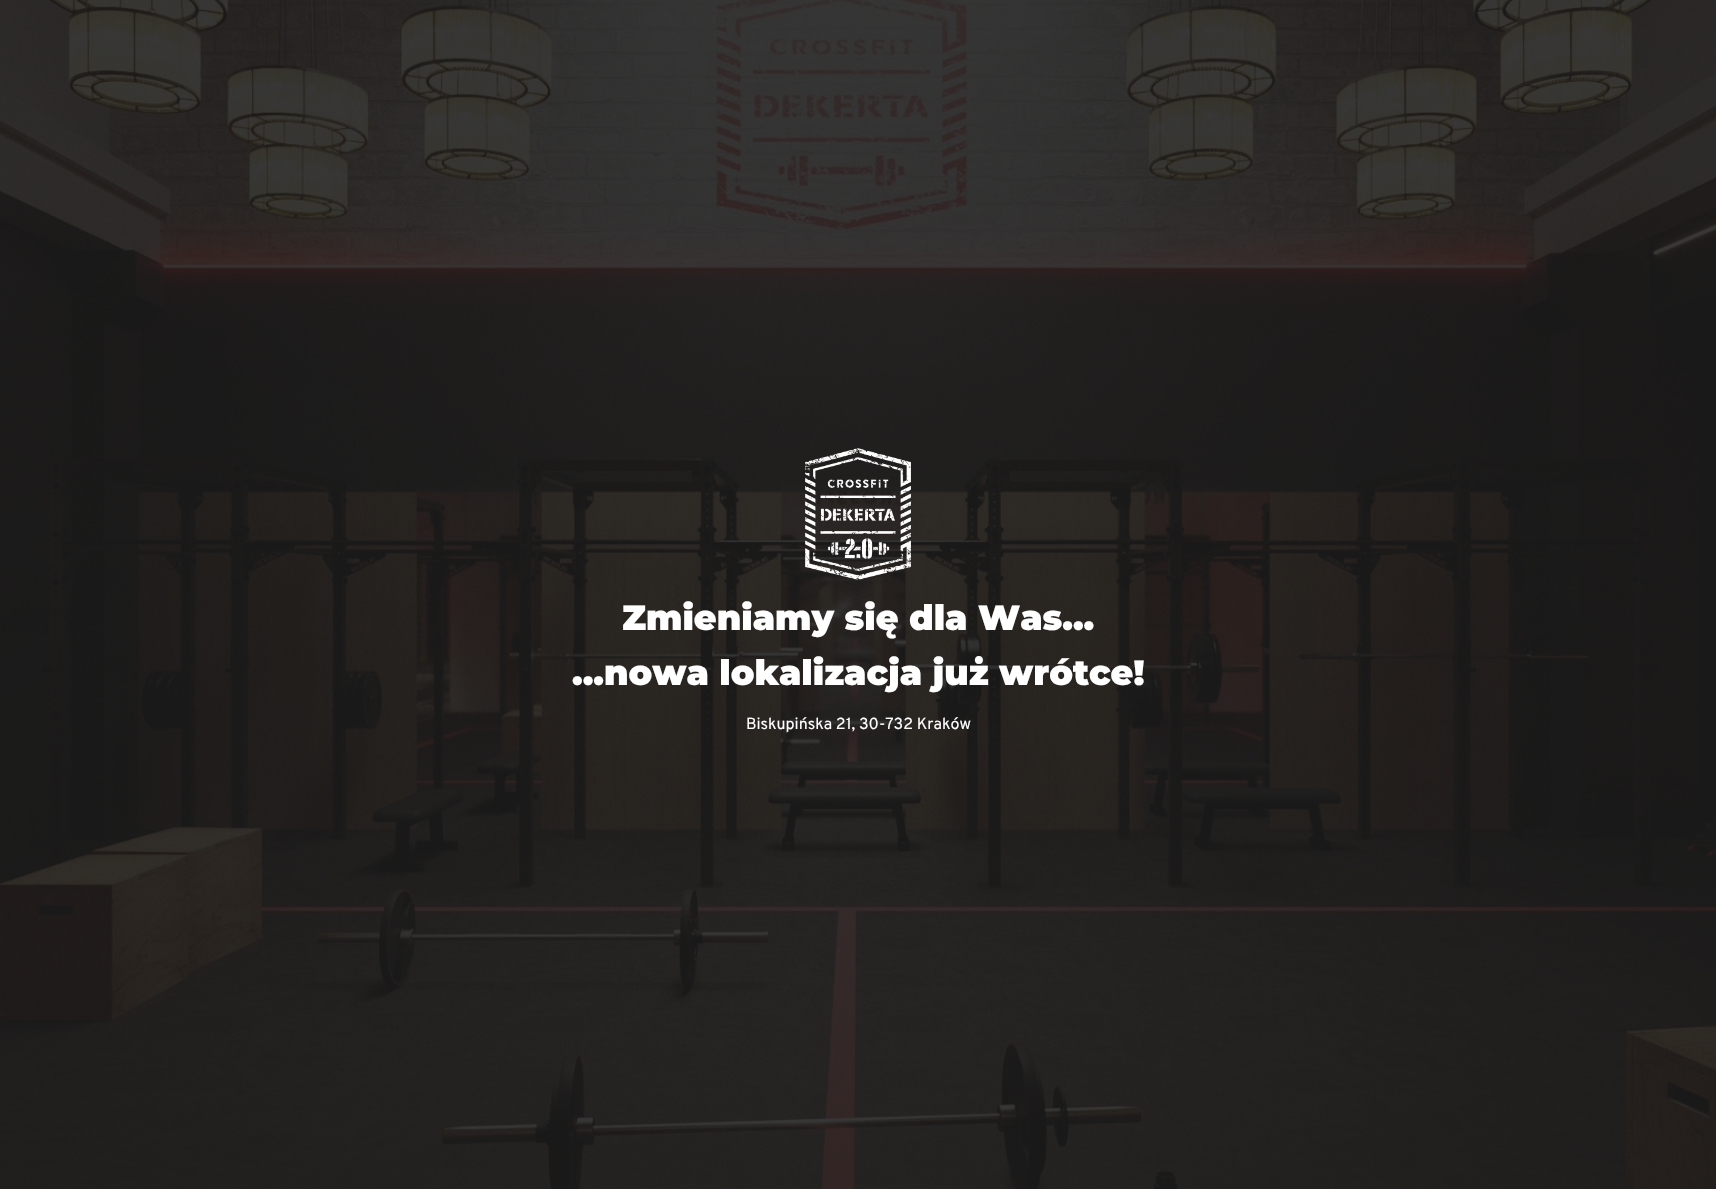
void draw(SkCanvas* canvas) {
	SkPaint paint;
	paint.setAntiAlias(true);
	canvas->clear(0xffffffff);
	canvas->drawImageRect(SkImages::DeferredFromEncodedData(SkData::MakeFromFileName("img1.png")), SkRect::MakeXYWH(0, 0, 1716, 1189), SkSamplingOptions());
	canvas->drawImageRect(SkImages::DeferredFromEncodedData(SkData::MakeFromFileName("img2.png")), SkRect::MakeXYWH(805, 448, 106, 132), SkSamplingOptions());
	SkFont f1(fontMgr->matchFamilyStyle("Montserrat", SkFontStyle(100, SkFontStyle::kNormal_Width, SkFontStyle::kUpright_Slant)), 35);
	f1.setSubpixel(true);
	paint.setColor(0xffffffff);
	canvas->drawString("Zmieniamy się dla Was...", 622, 630, f1, paint);
	canvas->drawString("...nowa lokalizacja już wrótce!", 572, 685, f1, paint);
	SkFont f2(fontMgr->matchFamilyStyle("Overpass", SkFontStyle::Normal()), 16);
	f2.setSubpixel(true);
	canvas->drawString("Biskupińska 21, 30-732 Kraków", 746, 729, f2, paint);
}
